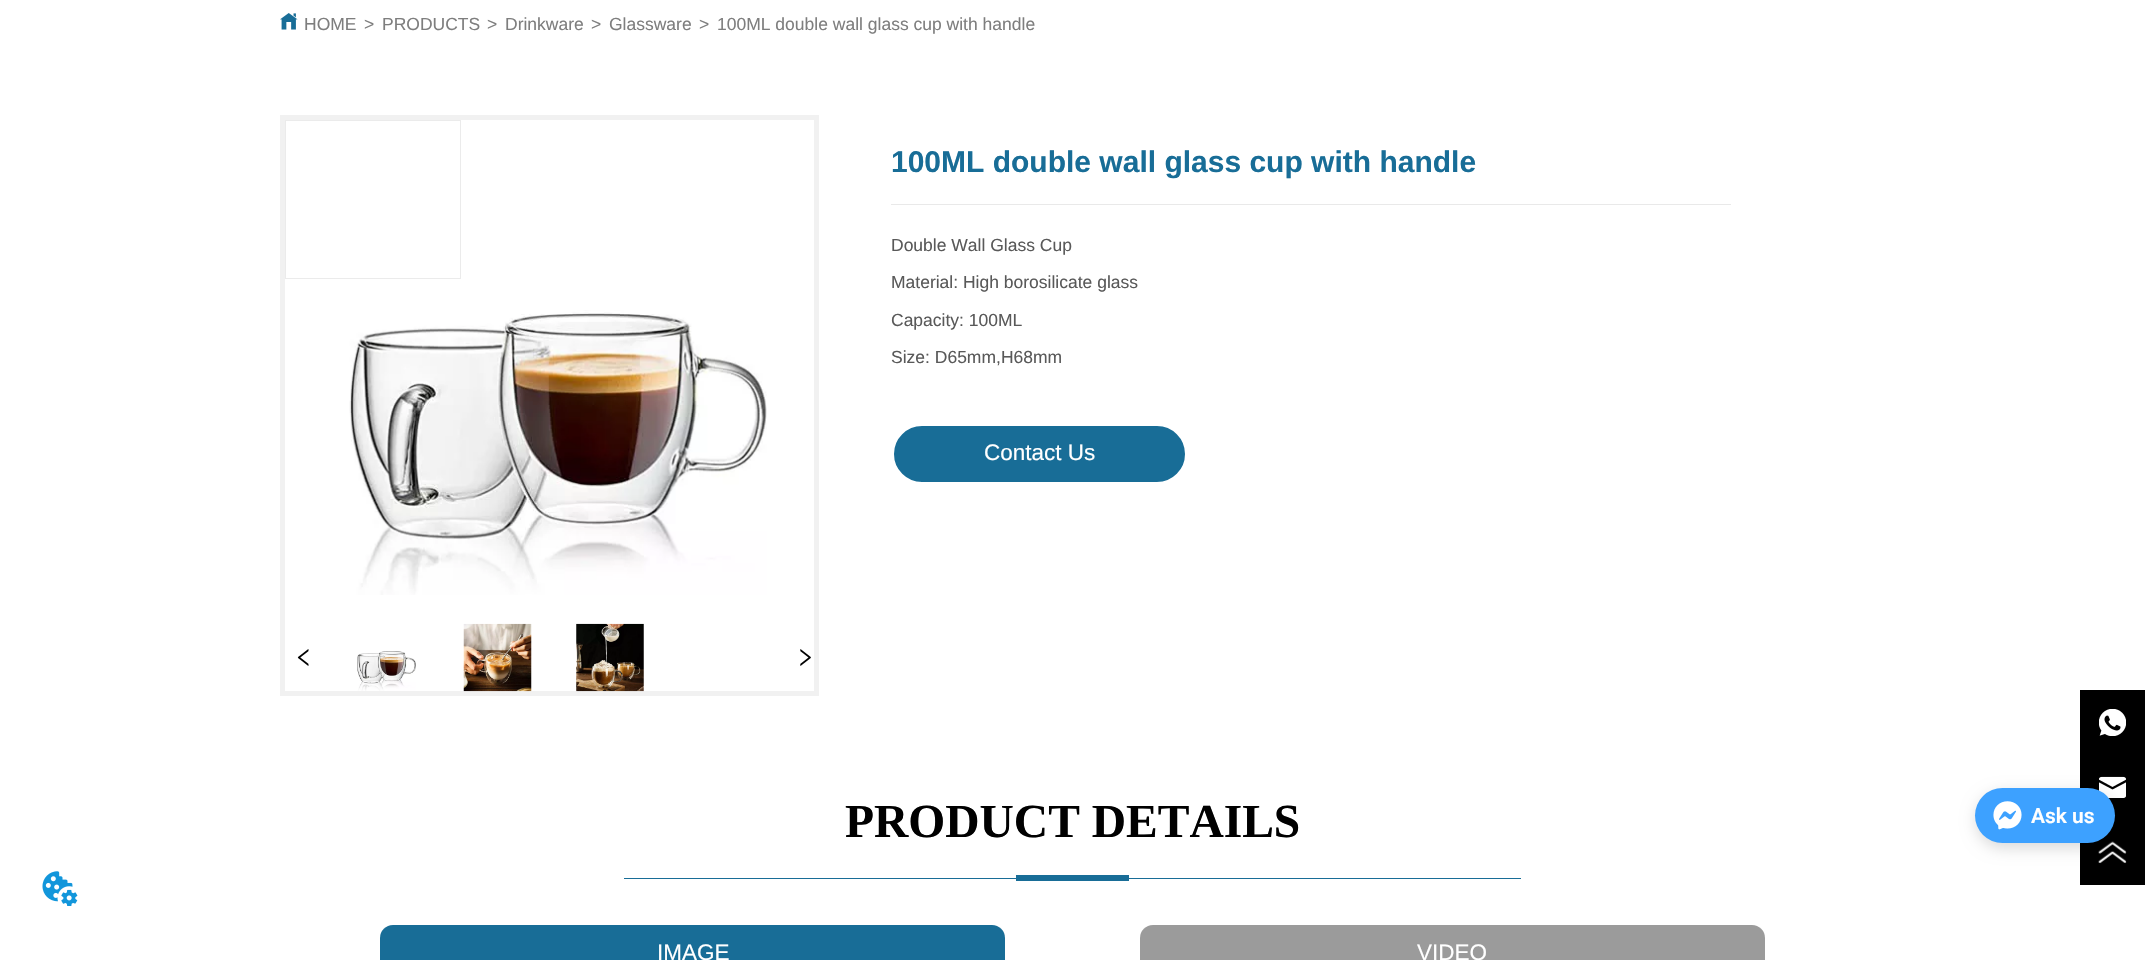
void draw(SkCanvas* canvas) {
	SkPaint paint;
	paint.setAntiAlias(true);
	canvas->clear(0xffffffff);
	canvas->drawImageRect(SkImages::DeferredFromEncodedData(SkData::MakeFromFileName("img1.png")), SkRect::MakeXYWH(280, 13, 18, 17), SkSamplingOptions());
	SkFont f1(fontMgr->matchFamilyStyle("Liberation Sans", SkFontStyle::Normal()), 17.5);
	f1.setSubpixel(true);
	paint.setColor(0xff7e7e7e);
	canvas->drawString("HOME", 304, 30, f1, paint);
	canvas->drawString(">", 364, 30, f1, paint);
	canvas->drawString("PRODUCTS", 382, 30, f1, paint);
	canvas->drawString(">", 487, 30, f1, paint);
	canvas->drawString("Drinkware", 505, 30, f1, paint);
	canvas->drawString(">", 591, 30, f1, paint);
	canvas->drawString("Glassware", 609, 30, f1, paint);
	canvas->drawString(">", 699, 30, f1, paint);
	canvas->drawString("100ML double wall glass cup with handle", 717, 30, f1, paint);
	paint.setStroke(true);
	paint.setStrokeWidth(5);
	paint.setColor(0xfff1f1f1);
	canvas->drawRect(SkRect::MakeXYWH(282.5, 117.5, 534, 576), paint);
	paint.setStrokeWidth(1);
	paint.setColor(0xffebebeb);
	canvas->drawRect(SkRect::MakeXYWH(285.5, 120.5, 175, 158), paint);
	canvas->drawImageRect(SkImages::DeferredFromEncodedData(SkData::MakeFromFileName("img2.png")), SkRect::MakeXYWH(349, 310, 418, 285), SkSamplingOptions());
	canvas->drawImageRect(SkImages::DeferredFromEncodedData(SkData::MakeFromFileName("img3.png")), SkRect::MakeXYWH(297, 649, 12, 17), SkSamplingOptions());
	canvas->drawImageRect(SkImages::DeferredFromEncodedData(SkData::MakeFromFileName("img4.png")), SkRect::MakeXYWH(357, 651, 59, 40), SkSamplingOptions());
	canvas->drawImageRect(SkImages::DeferredFromEncodedData(SkData::MakeFromFileName("img5.png")), SkRect::MakeXYWH(463, 623, 69, 69), SkSamplingOptions());
	canvas->drawImageRect(SkImages::DeferredFromEncodedData(SkData::MakeFromFileName("img6.png")), SkRect::MakeXYWH(576, 623, 68, 69), SkSamplingOptions());
	canvas->drawImageRect(SkImages::DeferredFromEncodedData(SkData::MakeFromFileName("img7.png")), SkRect::MakeXYWH(800, 649, 11, 17), SkSamplingOptions());
	SkFont f2(fontMgr->matchFamilyStyle("Liberation Sans", SkFontStyle::Bold()), 30);
	f2.setSubpixel(true);
	paint.setStroke(false);
	paint.setColor(0xff186d97);
	canvas->drawString("100ML double wall glass cup with handle", 891, 172, f2, paint);
	paint.setColor(0xffe9e9e9);
	canvas->drawRect(SkRect::MakeXYWH(891, 204, 840, 1), paint);
	paint.setColor(0xff595959);
	canvas->drawString("Double Wall Glass Cup", 891, 251, f1, paint);
	canvas->drawString("Material: High borosilicate glass", 891, 288, f1, paint);
	canvas->drawString("Capacity: 100ML", 891, 326, f1, paint);
	canvas->drawString("Size: D65mm,H68mm", 891, 363, f1, paint);
	paint.setColor(0xff186d97);
	canvas->drawRoundRect(SkRect::MakeXYWH(892.5, 424.5, 294, 59), 29.5, 29.5, paint);
	paint.setStroke(true);
	paint.setStrokeWidth(3);
	paint.setColor(0xffffffff);
	canvas->drawRoundRect(SkRect::MakeXYWH(892.5, 424.5, 294, 59), 29.5, 29.5, paint);
	SkFont f3(fontMgr->matchFamilyStyle("Liberation Sans", SkFontStyle::Normal()), 22.5);
	f3.setSubpixel(true);
	paint.setStroke(false);
	canvas->drawString("Contact Us", 984, 460, f3, paint);
	SkFont f4(fontMgr->matchFamilyStyle("Liberation Serif", SkFontStyle::Bold()), 47.5);
	f4.setSubpixel(true);
	paint.setColor(0xff000000);
	canvas->drawString("PRODUCT DETAILS", 845, 837, f4, paint);
	paint.setColor(0xff186d97);
	canvas->drawRect(SkRect::MakeXYWH(624, 878, 897, 1), paint);
	canvas->drawRect(SkRect::MakeXYWH(1016, 875, 113, 6), paint);
	canvas->drawRoundRect(SkRect::MakeXYWH(380, 925, 625, 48), 13, 13, paint);
	paint.setColor(0xffffffff);
	canvas->drawString("IMAGE", 657, 960, f3, paint);
	paint.setColor(0xff9b9b9b);
	canvas->drawRoundRect(SkRect::MakeXYWH(1140, 925, 625, 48), 13, 13, paint);
	paint.setColor(0xffffffff);
	canvas->drawString("VIDEO", 1417, 960, f3, paint);
	paint.setColor(0xff000000);
	canvas->drawRect(SkRect::MakeXYWH(2080, 690, 65, 195), paint);
	canvas->drawImageRect(SkImages::DeferredFromEncodedData(SkData::MakeFromFileName("img8.png")), SkRect::MakeXYWH(2099, 709, 27, 27), SkSamplingOptions());
	canvas->drawImageRect(SkImages::DeferredFromEncodedData(SkData::MakeFromFileName("img9.png")), SkRect::MakeXYWH(2099, 776, 27, 22), SkSamplingOptions());
	canvas->drawImageRect(SkImages::DeferredFromEncodedData(SkData::MakeFromFileName("img10.png")), SkRect::MakeXYWH(2098, 841, 29, 23), SkSamplingOptions());
	paint.setColor(0x26000000);
	paint.setMaskFilter(SkMaskFilter::MakeBlur(kNormal_SkBlurStyle, 7.5));
	canvas->drawRoundRect(SkRect::MakeXYWH(1976, 793, 139, 55), 27.5, 27.5, paint);
	paint.setMaskFilter(nullptr);
	paint.setColor(0xff3da1ff);
	canvas->drawRoundRect(SkRect::MakeXYWH(1975, 788, 140, 55), 27.5, 27.5, paint);
	canvas->drawImageRect(SkImages::DeferredFromEncodedData(SkData::MakeFromFileName("img11.png")), SkRect::MakeXYWH(1993, 801, 29, 29), SkSamplingOptions());
	SkFont f5(fontMgr->matchFamilyStyle("Roboto", SkFontStyle(600, SkFontStyle::kNormal_Width, SkFontStyle::kUpright_Slant)), 21);
	f5.setSubpixel(true);
	paint.setColor(0xffffffff);
	canvas->drawString("Ask us", 2031, 823, f5, paint);
	canvas->drawImageRect(SkImages::DeferredFromEncodedData(SkData::MakeFromFileName("img12.png")), SkRect::MakeXYWH(42, 871, 36, 35), SkSamplingOptions());
}
